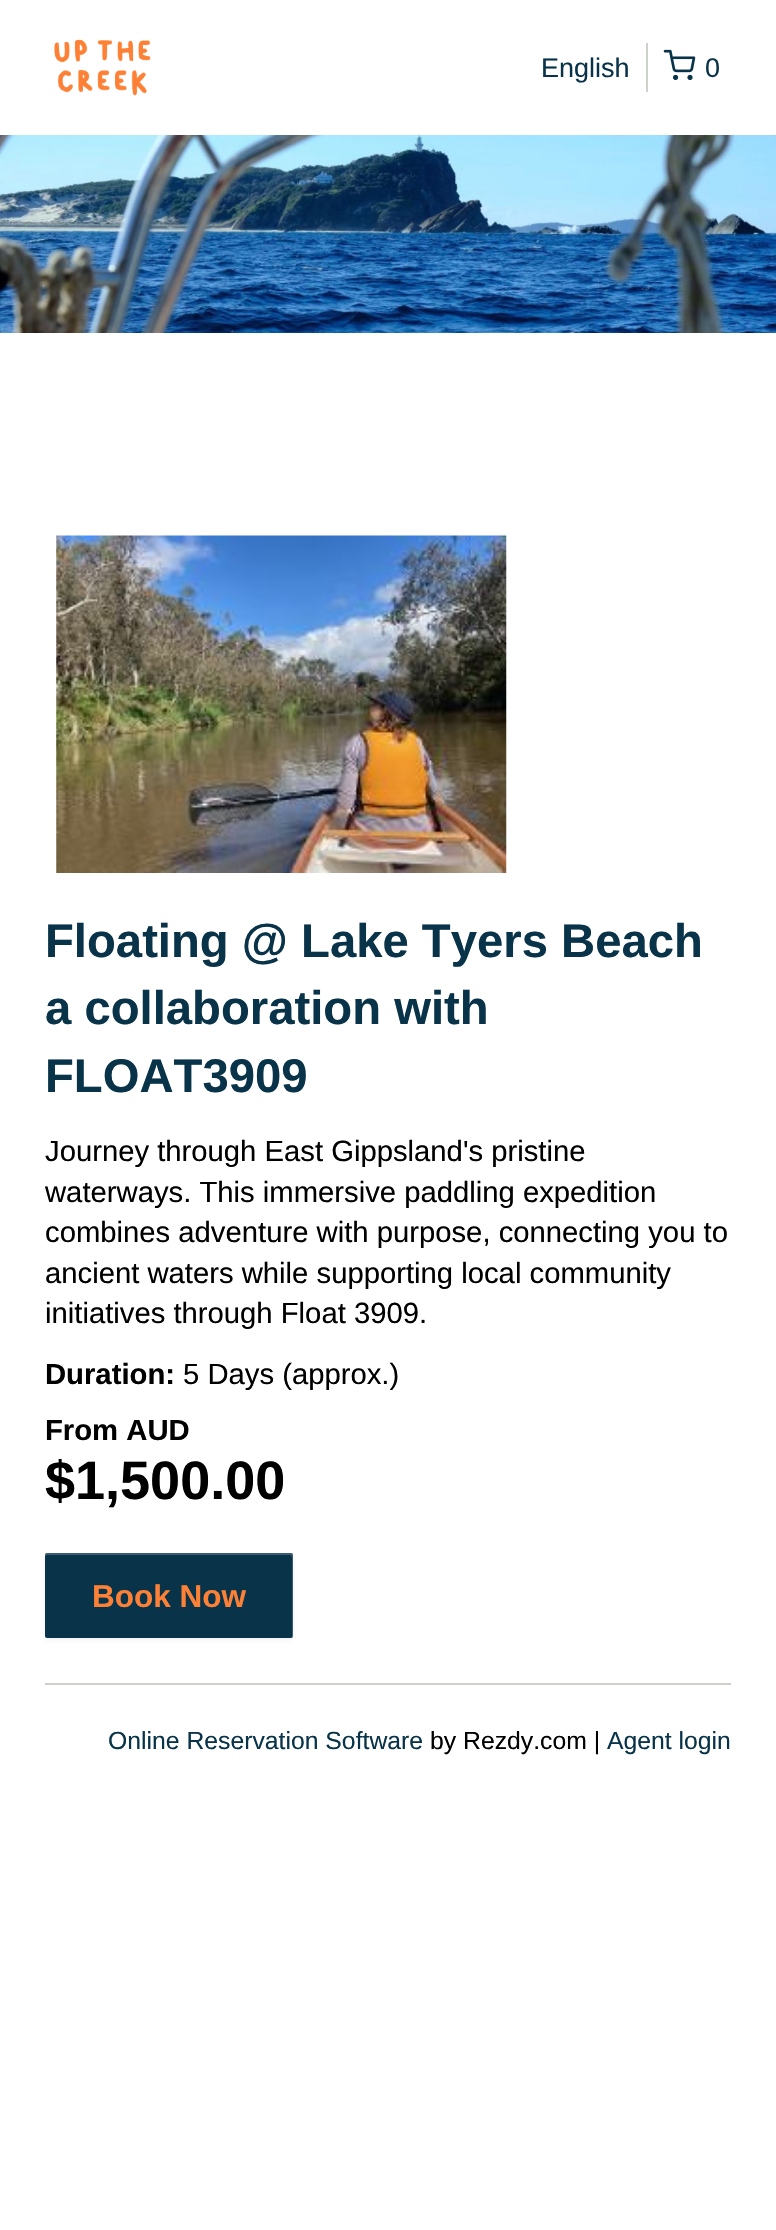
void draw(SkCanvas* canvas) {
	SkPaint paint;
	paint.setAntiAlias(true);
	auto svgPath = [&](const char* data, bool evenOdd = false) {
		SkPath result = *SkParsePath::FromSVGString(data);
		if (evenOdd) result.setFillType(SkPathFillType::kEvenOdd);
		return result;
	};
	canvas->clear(0xffffffff);
	canvas->drawImageRect(SkImages::DeferredFromEncodedData(SkData::MakeFromFileName("img1.png")), SkRect::MakeXYWH(54, 39, 97, 57), SkSamplingOptions());
	paint.setColor(0xffccd1ca);
	canvas->drawRect(SkRect::MakeXYWH(646, 43, 2, 49), paint);
	SkFont f1(fontMgr->matchFamilyStyle("Liberation Sans", SkFontStyle::Normal()), 27);
	f1.setSubpixel(true);
	paint.setColor(0xff083349);
	canvas->drawString("English", 541, 77, f1, paint);
	canvas->drawImageRect(SkImages::DeferredFromEncodedData(SkData::MakeFromFileName("img2.png")), SkRect::MakeXYWH(663, 49, 33, 32), SkSamplingOptions());
	canvas->drawString("0", 705, 77, f1, paint);
	canvas->drawImageRect(SkImages::DeferredFromEncodedData(SkData::MakeFromFileName("img3.png")), SkRect::MakeXYWH(0, 135, 776, 198), SkSamplingOptions());
	paint.setColor(0xffccd1ca);
	canvas->drawRect(SkRect::MakeXYWH(45, 1683, 686, 2), paint);
	canvas->drawImageRect(SkImages::DeferredFromEncodedData(SkData::MakeFromFileName("img4.png")), SkRect::MakeXYWH(56, 535, 451, 338), SkSamplingOptions());
	SkFont f2(fontMgr->matchFamilyStyle("Liberation Sans", SkFontStyle::Bold()), 47.25);
	f2.setSubpixel(true);
	paint.setColor(0xff083349);
	canvas->drawString("Floating @ Lake Tyers Beach", 45, 957, f2, paint);
	canvas->drawString("a collaboration with", 45, 1024, f2, paint);
	canvas->drawString("FLOAT3909", 45, 1092, f2, paint);
	SkFont f3(fontMgr->matchFamilyStyle("Liberation Sans", SkFontStyle::Normal()), 29.25);
	f3.setSubpixel(true);
	paint.setColor(0xff000000);
	canvas->drawString("Journey through East Gippsland's pristine", 45, 1161, f3, paint);
	canvas->drawString("waterways. This immersive paddling expedition", 45, 1202, f3, paint);
	canvas->drawString("combines adventure with purpose, connecting you to", 45, 1242, f3, paint);
	canvas->drawString("ancient waters while supporting local community", 45, 1283, f3, paint);
	canvas->drawString("initiatives through Float 3909.", 45, 1323, f3, paint);
	SkFont f4(fontMgr->matchFamilyStyle("Liberation Sans", SkFontStyle::Bold()), 29.25);
	f4.setSubpixel(true);
	canvas->drawString("Duration:", 45, 1384, f4, paint);
	canvas->drawString("5 Days (approx.)", 183, 1384, f3, paint);
	canvas->drawString("From AUD", 45, 1440, f4, paint);
	SkFont f5(fontMgr->matchFamilyStyle("Liberation Sans", SkFontStyle::Bold()), 54);
	f5.setSubpixel(true);
	canvas->drawString("$1,500.00", 45, 1499, f5, paint);
	paint.setColor(0x0d000000);
	paint.setMaskFilter(SkMaskFilter::MakeBlur(kNormal_SkBlurStyle, 2));
	canvas->drawRoundRect(SkRect::MakeXYWH(45, 1555, 248, 85), 2, 2, paint);
	paint.setMaskFilter(nullptr);
	paint.setColor(0xff083349);
	canvas->drawRoundRect(SkRect::MakeXYWH(45, 1553, 248, 85), 2, 2, paint);
	paint.setColor(0x33ffffff);
	canvas->drawPath(svgPath("M47 1555H290C291 1555 292 1556 292 1557V1638C293 1637 293 1637 293 1636V1555C293 1554 292 1553 291 1553H47C46 1553 45 1554 45 1555V1557C45 1556 46 1555 47 1555Z"), paint);
	SkFont f6(fontMgr->matchFamilyStyle("Liberation Sans", SkFontStyle::Bold()), 31.5);
	f6.setSubpixel(true);
	paint.setColor(0xfffc8137);
	canvas->drawString("Book Now", 92, 1607, f6, paint);
	SkFont f7(fontMgr->matchFamilyStyle("Liberation Sans", SkFontStyle::Normal()), 24.75);
	f7.setSubpixel(true);
	paint.setColor(0xff083349);
	canvas->drawString("Online Reservation Software", 108, 1749, f7, paint);
	paint.setColor(0xff000000);
	canvas->drawString("by Rezdy.com |", 430, 1749, f7, paint);
	paint.setColor(0xff083349);
	canvas->drawString("Agent login", 607, 1749, f7, paint);
}
